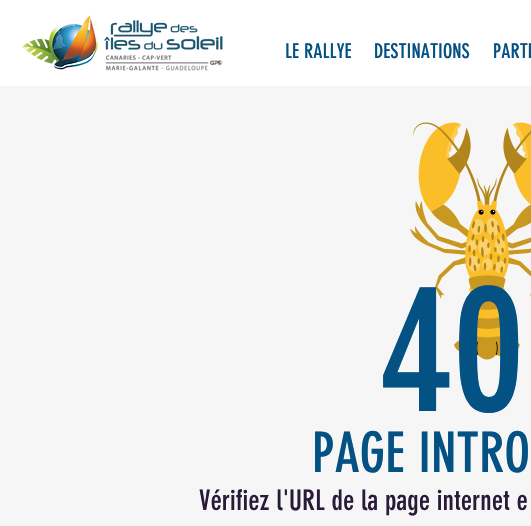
void draw(SkCanvas* canvas) {
	SkPaint paint;
	paint.setAntiAlias(true);
	canvas->clear(0xfff6f6f6);
	paint.setColor(0xffffffff);
	canvas->drawRect(SkRect::MakeXYWH(0, 0, 531, 86), paint);
	canvas->drawImageRect(SkImages::DeferredFromEncodedData(SkData::MakeFromFileName("img1.png")), SkRect::MakeXYWH(22, 15, 201, 56), SkSamplingOptions());
	SkFont f1(fontMgr->matchFamilyStyle("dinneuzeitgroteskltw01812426", SkFontStyle::Normal()), 20);
	f1.setSubpixel(true);
	paint.setColor(0xff045184);
	canvas->drawString("LE RALLYE", 285, 58, f1, paint);
	canvas->drawString("DESTINATIONS", 374, 58, f1, paint);
	canvas->drawString("PARTE", 493, 58, f1, paint);
	canvas->drawImageRect(SkImages::DeferredFromEncodedData(SkData::MakeFromFileName("img2.png")), SkRect::MakeXYWH(410, 122, 121, 238), SkSamplingOptions());
	SkFont f2(fontMgr->matchFamilyStyle("dinneuzeitgroteskltw01812426", SkFontStyle::Normal()), 176);
	f2.setSubpixel(true);
	canvas->drawString("40", 381, 411, f2, paint);
	SkFont f3(fontMgr->matchFamilyStyle("dinneuzeitgroteskltw01812426", SkFontStyle::Normal()), 55);
	f3.setSubpixel(true);
	canvas->drawString("PAGE INTRO", 312, 472, f3, paint);
	SkFont f4(fontMgr->matchFamilyStyle("dinneuzeitgroteskltw01812426", SkFontStyle::Normal()), 28);
	f4.setSubpixel(true);
	paint.setColor(0xff281a39);
	canvas->drawString("Vérifiez l'URL de la page internet e", 199, 510, f4, paint);
}
